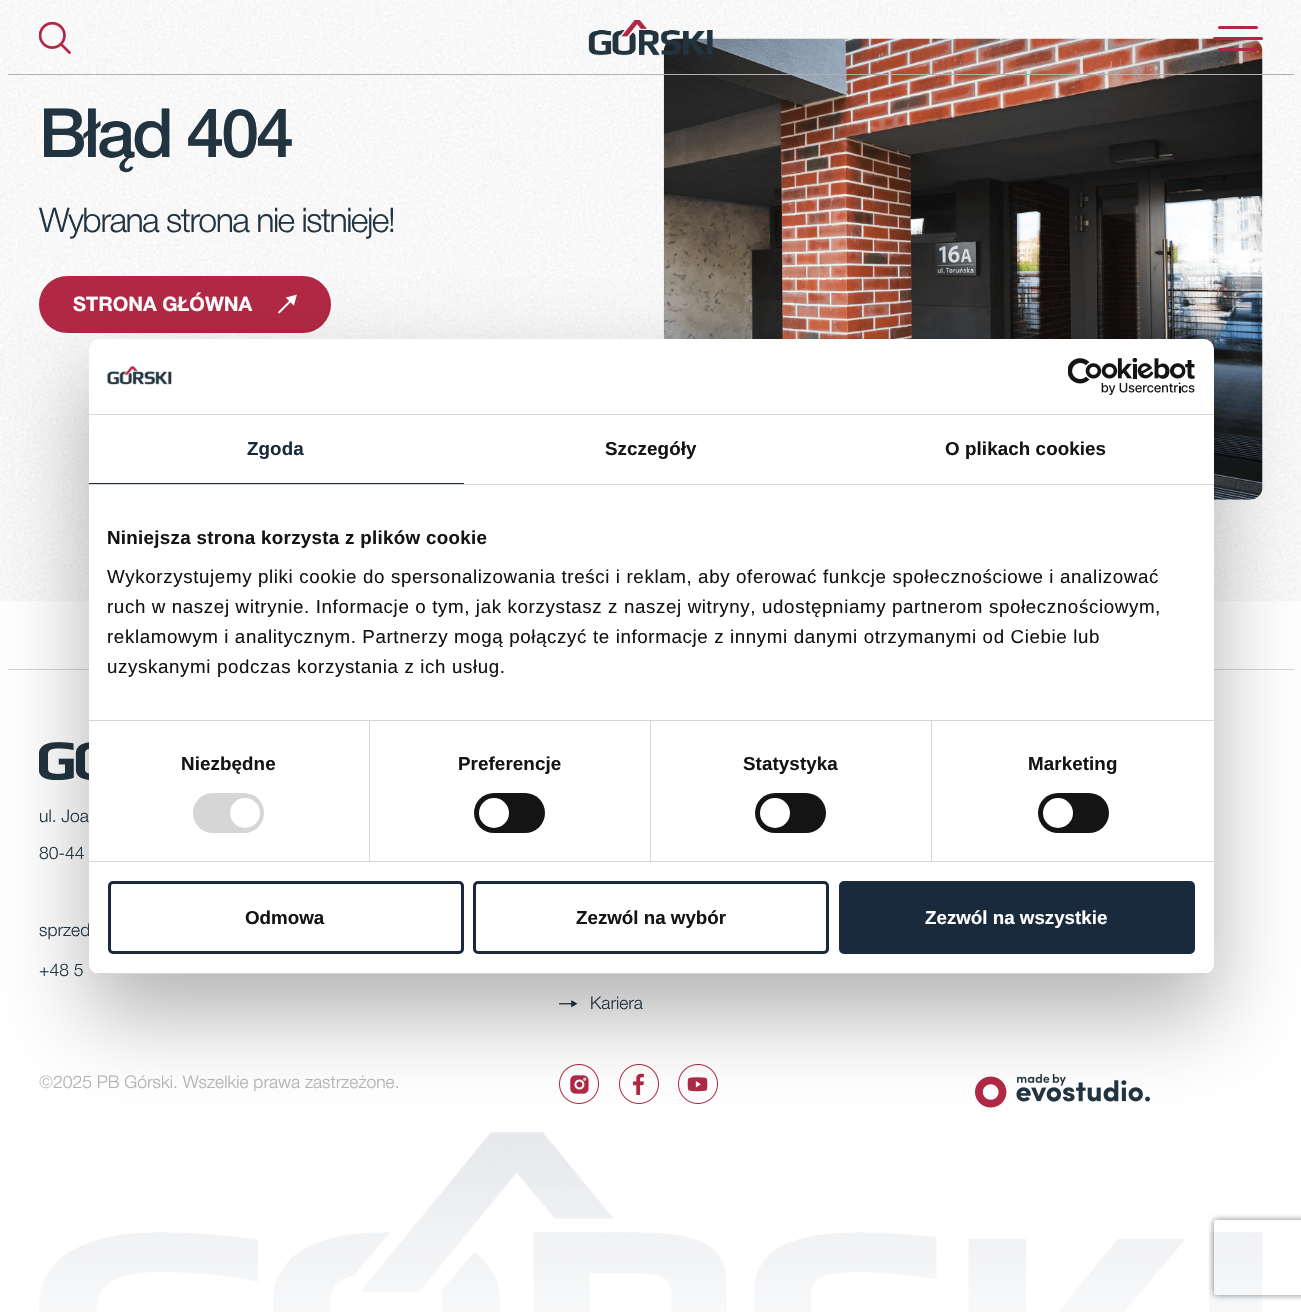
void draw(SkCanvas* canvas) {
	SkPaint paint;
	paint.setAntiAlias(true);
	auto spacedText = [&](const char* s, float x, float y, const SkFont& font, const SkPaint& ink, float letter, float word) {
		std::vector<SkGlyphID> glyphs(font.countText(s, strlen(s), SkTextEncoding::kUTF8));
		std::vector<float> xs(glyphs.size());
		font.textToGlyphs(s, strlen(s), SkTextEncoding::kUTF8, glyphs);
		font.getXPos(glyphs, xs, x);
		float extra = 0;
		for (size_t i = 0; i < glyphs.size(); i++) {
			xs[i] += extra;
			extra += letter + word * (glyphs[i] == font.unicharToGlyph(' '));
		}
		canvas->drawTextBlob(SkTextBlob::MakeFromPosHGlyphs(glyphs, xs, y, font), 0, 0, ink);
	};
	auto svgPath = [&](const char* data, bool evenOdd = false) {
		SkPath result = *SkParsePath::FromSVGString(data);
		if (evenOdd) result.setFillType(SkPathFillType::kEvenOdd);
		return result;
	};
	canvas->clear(0xffffffff);
	canvas->drawImageRect(SkImages::DeferredFromEncodedData(SkData::MakeFromFileName("img1.png")), SkRect::MakeXYWH(0, 0, 1301, 601), SkSamplingOptions());
	canvas->drawImageRect(SkImages::DeferredFromEncodedData(SkData::MakeFromFileName("img2.png")), SkRect::MakeXYWH(39, 22, 32, 32), SkSamplingOptions());
	canvas->drawImageRect(SkImages::DeferredFromEncodedData(SkData::MakeFromFileName("img5.png")), SkRect::MakeXYWH(663, 38, 600, 462), SkSamplingOptions());
	canvas->drawImageRect(SkImages::DeferredFromEncodedData(SkData::MakeFromFileName("img3.png")), SkRect::MakeXYWH(588, 20, 125, 36), SkSamplingOptions());
	paint.setColor(0xffb12845);
	canvas->drawRoundRect(SkRect::MakeXYWH(1218, 26, 40, 3), 1.5, 1.5, paint);
	canvas->drawRoundRect(SkRect::MakeXYWH(1213, 37, 50, 3), 1.5, 1.5, paint);
	canvas->drawRoundRect(SkRect::MakeXYWH(1218, 48, 40, 3), 1.5, 1.5, paint);
	paint.setColor(0xffb1b1b1);
	canvas->drawRect(SkRect::MakeXYWH(8, 74, 1286, 1), paint);
	SkFont f1(fontMgr->matchFamilyStyle("Helvetica Neue", SkFontStyle(500, SkFontStyle::kNormal_Width, SkFontStyle::kUpright_Slant)), 68);
	f1.setSubpixel(true);
	paint.setColor(0xff223440);
	spacedText("Błąd 404", 39, 157, f1, paint, -3, 0);
	SkFont f2(fontMgr->matchFamilyStyle("Helvetica Neue", SkFontStyle(300, SkFontStyle::kNormal_Width, SkFontStyle::kUpright_Slant)), 33.9);
	f2.setSubpixel(true);
	spacedText("Wybrana strona nie istnieje!", 39, 232, f2, paint, -1.55, 0);
	paint.setColor(0xffb12845);
	canvas->drawRoundRect(SkRect::MakeXYWH(40.5, 277.5, 289, 54), 27, 27, paint);
	paint.setStroke(true);
	paint.setStrokeWidth(3);
	canvas->drawRoundRect(SkRect::MakeXYWH(40.5, 277.5, 289, 54), 27, 27, paint);
	SkFont f3(fontMgr->matchFamilyStyle("Helvetica Neue", SkFontStyle::Bold()), 20);
	f3.setSubpixel(true);
	paint.setStroke(false);
	paint.setColor(0xffffffff);
	canvas->drawString("STRONA GŁÓWNA", 73, 311, f3, paint);
	canvas->drawImageRect(SkImages::DeferredFromEncodedData(SkData::MakeFromFileName("img4.png")), SkRect::MakeXYWH(278, 294, 19, 20), SkSamplingOptions());
	paint.setColor(0xffd6d6d6);
	canvas->drawRect(SkRect::MakeXYWH(8, 669, 1286, 1), paint);
	canvas->drawImageRect(SkImages::DeferredFromEncodedData(SkData::MakeFromFileName("img8.png")), SkRect::MakeXYWH(39, 742, 50, 38), SkSamplingOptions());
	canvas->drawImageRect(SkImages::DeferredFromEncodedData(SkData::MakeFromFileName("img9.png")), SkRect::MakeXYWH(559, 1000, 19, 8), SkSamplingOptions());
	canvas->drawImageRect(SkImages::DeferredFromEncodedData(SkData::MakeFromFileName("img10.png")), SkRect::MakeXYWH(559, 1064, 40, 40), SkSamplingOptions());
	canvas->drawImageRect(SkImages::DeferredFromEncodedData(SkData::MakeFromFileName("img11.png")), SkRect::MakeXYWH(619, 1064, 40, 40), SkSamplingOptions());
	canvas->drawImageRect(SkImages::DeferredFromEncodedData(SkData::MakeFromFileName("img12.png")), SkRect::MakeXYWH(678, 1064, 40, 40), SkSamplingOptions());
	canvas->drawImageRect(SkImages::DeferredFromEncodedData(SkData::MakeFromFileName("img13.png")), SkRect::MakeXYWH(975, 1074, 175, 34), SkSamplingOptions());
	canvas->drawImageRect(SkImages::DeferredFromEncodedData(SkData::MakeFromFileName("img14.png")), SkRect::MakeXYWH(39, 1132, 1224, 180), SkSamplingOptions());
	paint.setColor(0x4d000000);
	paint.setMaskFilter(SkMaskFilter::MakeBlur(kNormal_SkBlurStyle, 42.5));
	canvas->drawRoundRect(SkRect::MakeXYWH(89, 379, 1125, 635), 10, 10, paint);
	paint.setMaskFilter(nullptr);
	SkFont f4(fontMgr->matchFamilyStyle("Helvetica Neue", SkFontStyle(300, SkFontStyle::kNormal_Width, SkFontStyle::kUpright_Slant)), 17.5);
	f4.setSubpixel(true);
	paint.setColor(0xff223440);
	canvas->drawString("sprzed", 39, 936, f4, paint);
	paint.setColor(0xffffffff);
	canvas->drawRoundRect(SkRect::MakeXYWH(89, 339, 1125, 635), 10, 10, paint);
	paint.setColor(0xffd6d6d6);
	canvas->drawRect(SkRect::MakeXYWH(89, 414, 1125, 1), paint);
	canvas->drawImageRect(SkImages::DeferredFromEncodedData(SkData::MakeFromFileName("img6.png")), SkRect::MakeXYWH(107, 366, 65, 19), SkSamplingOptions());
	canvas->drawImageRect(SkImages::DeferredFromEncodedData(SkData::MakeFromFileName("img7.png")), SkRect::MakeXYWH(1068, 358, 127, 37), SkSamplingOptions());
	canvas->drawRect(SkRect::MakeXYWH(89, 484, 1125, 1), paint);
	paint.setColor(0xff192a3d);
	canvas->drawRect(SkRect::MakeXYWH(89, 483, 375, 1), paint);
	SkFont f5(fontMgr->matchFamilyStyle("Liberation Sans", SkFontStyle::Bold()), 18.75);
	f5.setSubpixel(true);
	spacedText("Zgoda", 247, 455, f5, paint, 0.1, 0);
	paint.setColor(0xff141414);
	spacedText("Szczegóły", 605, 455, f5, paint, 0.1, 0);
	spacedText("O plikach cookies", 945, 455, f5, paint, 0.1, 0);
	paint.setColor(0xffd6d6d6);
	canvas->drawRect(SkRect::MakeXYWH(89, 720, 1125, 1), paint);
	paint.setColor(0xff141414);
	spacedText("Niniejsza strona korzysta z plików cookie", 107, 544, f5, paint, 0.3, 0);
	SkFont f6(fontMgr->matchFamilyStyle("Liberation Sans", SkFontStyle::Normal()), 18.75);
	f6.setSubpixel(true);
	spacedText("Wykorzystujemy pliki cookie do spersonalizowania treści i reklam, aby oferować funkcje społecznościowe i analizować", 107, 583, f6, paint, 0.62, 0);
	spacedText("ruch w naszej witrynie. Informacje o tym, jak korzystasz z naszej witryny, udostępniamy partnerom społecznościowym,", 107, 613, f6, paint, 0.62, 0);
	spacedText("reklamowym i analitycznym. Partnerzy mogą połączyć te informacje z innymi danymi otrzymanymi od Ciebie lub", 107, 643, f6, paint, 0.62, 0);
	spacedText("uzyskanymi podczas korzystania z ich usług.", 107, 673, f6, paint, 0.62, 0);
	paint.setColor(0xffd6d6d6);
	canvas->drawRect(SkRect::MakeXYWH(89, 861, 1125, 1), paint);
	canvas->drawRect(SkRect::MakeXYWH(369, 721, 1, 140), paint);
	paint.setColor(0xff141414);
	spacedText("Niezbędne", 181, 770, f5, paint, 0.1, 0);
	paint.setColor(0xffd6d6d6);
	canvas->drawRoundRect(SkRect::MakeXYWH(193, 793, 71, 40), 20, 20, paint);
	paint.setColor(0xffffffff);
	canvas->drawCircle(245, 813, 15, paint);
	paint.setColor(0xffd6d6d6);
	canvas->drawRect(SkRect::MakeXYWH(650, 721, 1, 140), paint);
	paint.setColor(0xff141414);
	spacedText("Preferencje", 458, 770, f5, paint, 0.1, 0);
	canvas->drawRoundRect(SkRect::MakeXYWH(474, 793, 71, 40), 20, 20, paint);
	paint.setColor(0xffffffff);
	canvas->drawCircle(494, 813, 15, paint);
	paint.setColor(0xffd6d6d6);
	canvas->drawRect(SkRect::MakeXYWH(931, 721, 1, 140), paint);
	paint.setColor(0xff141414);
	spacedText("Statystyka", 743, 770, f5, paint, 0.1, 0);
	canvas->drawRoundRect(SkRect::MakeXYWH(755, 793, 71, 40), 20, 20, paint);
	paint.setColor(0xffffffff);
	canvas->drawCircle(775, 813, 15, paint);
	paint.setColor(0xff141414);
	spacedText("Marketing", 1028, 770, f5, paint, 0.1, 0);
	canvas->drawRoundRect(SkRect::MakeXYWH(1038, 793, 71, 40), 20, 20, paint);
	paint.setColor(0xffffffff);
	canvas->drawCircle(1058, 813, 15, paint);
	canvas->save();
	canvas->clipPath(svgPath("M99 339H1204C1209.5 339 1214 343.5 1214 349V964C1214 969.5 1209.5 974 1204 974H99C93.5 974 89 969.5 89 964V349C89 343.5 93.5 339 99 339Z"), true);
	paint.setColor(0xffd6d6d6);
	canvas->drawRect(SkRect::MakeXYWH(89, 973, 1125, 1), paint);
	canvas->restore();
	paint.setStroke(true);
	paint.setColor(0xff192a3d);
	canvas->drawRoundRect(SkRect::MakeXYWH(109.5, 882.5, 353, 70), 3.5, 3.5, paint);
	paint.setStroke(false);
	paint.setColor(0xff141414);
	canvas->drawString("Odmowa", 245, 924, f5, paint);
	paint.setStroke(true);
	paint.setColor(0xff192a3d);
	canvas->drawRoundRect(SkRect::MakeXYWH(474.5, 882.5, 353, 70), 3.5, 3.5, paint);
	paint.setStroke(false);
	paint.setColor(0xff141414);
	canvas->drawString("Zezwól na wybór", 576, 924, f5, paint);
	paint.setColor(0xff192a3d);
	canvas->drawRoundRect(SkRect::MakeXYWH(840.5, 882.5, 353, 70), 3.5, 3.5, paint);
	paint.setStroke(true);
	canvas->drawRoundRect(SkRect::MakeXYWH(840.5, 882.5, 353, 70), 3.5, 3.5, paint);
	paint.setStroke(false);
	paint.setColor(0xffffffff);
	canvas->drawString("Zezwól na wszystkie", 925, 924, f5, paint);
	paint.setColor(0xff223440);
	canvas->drawString("ul. Joa", 39, 822, f4, paint);
	canvas->drawString("80-44", 39, 859, f4, paint);
	canvas->drawString("+48 5", 39, 976, f4, paint);
	canvas->drawString("Kariera", 590, 1009, f4, paint);
	paint.setColor(0xffb1b1b1);
	canvas->drawString("©2025 PB Górski. Wszelkie prawa zastrzeżone.", 39, 1088, f4, paint);
	canvas->save();
	canvas->clipPath(svgPath("M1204 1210H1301V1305H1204ZM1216.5 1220H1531.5C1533 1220 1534 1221 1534 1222.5V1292.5C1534 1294 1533 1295 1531.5 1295H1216.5C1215 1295 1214 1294 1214 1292.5V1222.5C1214 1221 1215 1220 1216.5 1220Z", true), true);
	paint.setColor(0xff808080);
	paint.setMaskFilter(SkMaskFilter::MakeBlur(kNormal_SkBlurStyle, 3));
	canvas->drawRoundRect(SkRect::MakeXYWH(1214, 1220, 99, 75), 2.5, 2.5, paint);
	paint.setMaskFilter(nullptr);
	canvas->restore();
}
